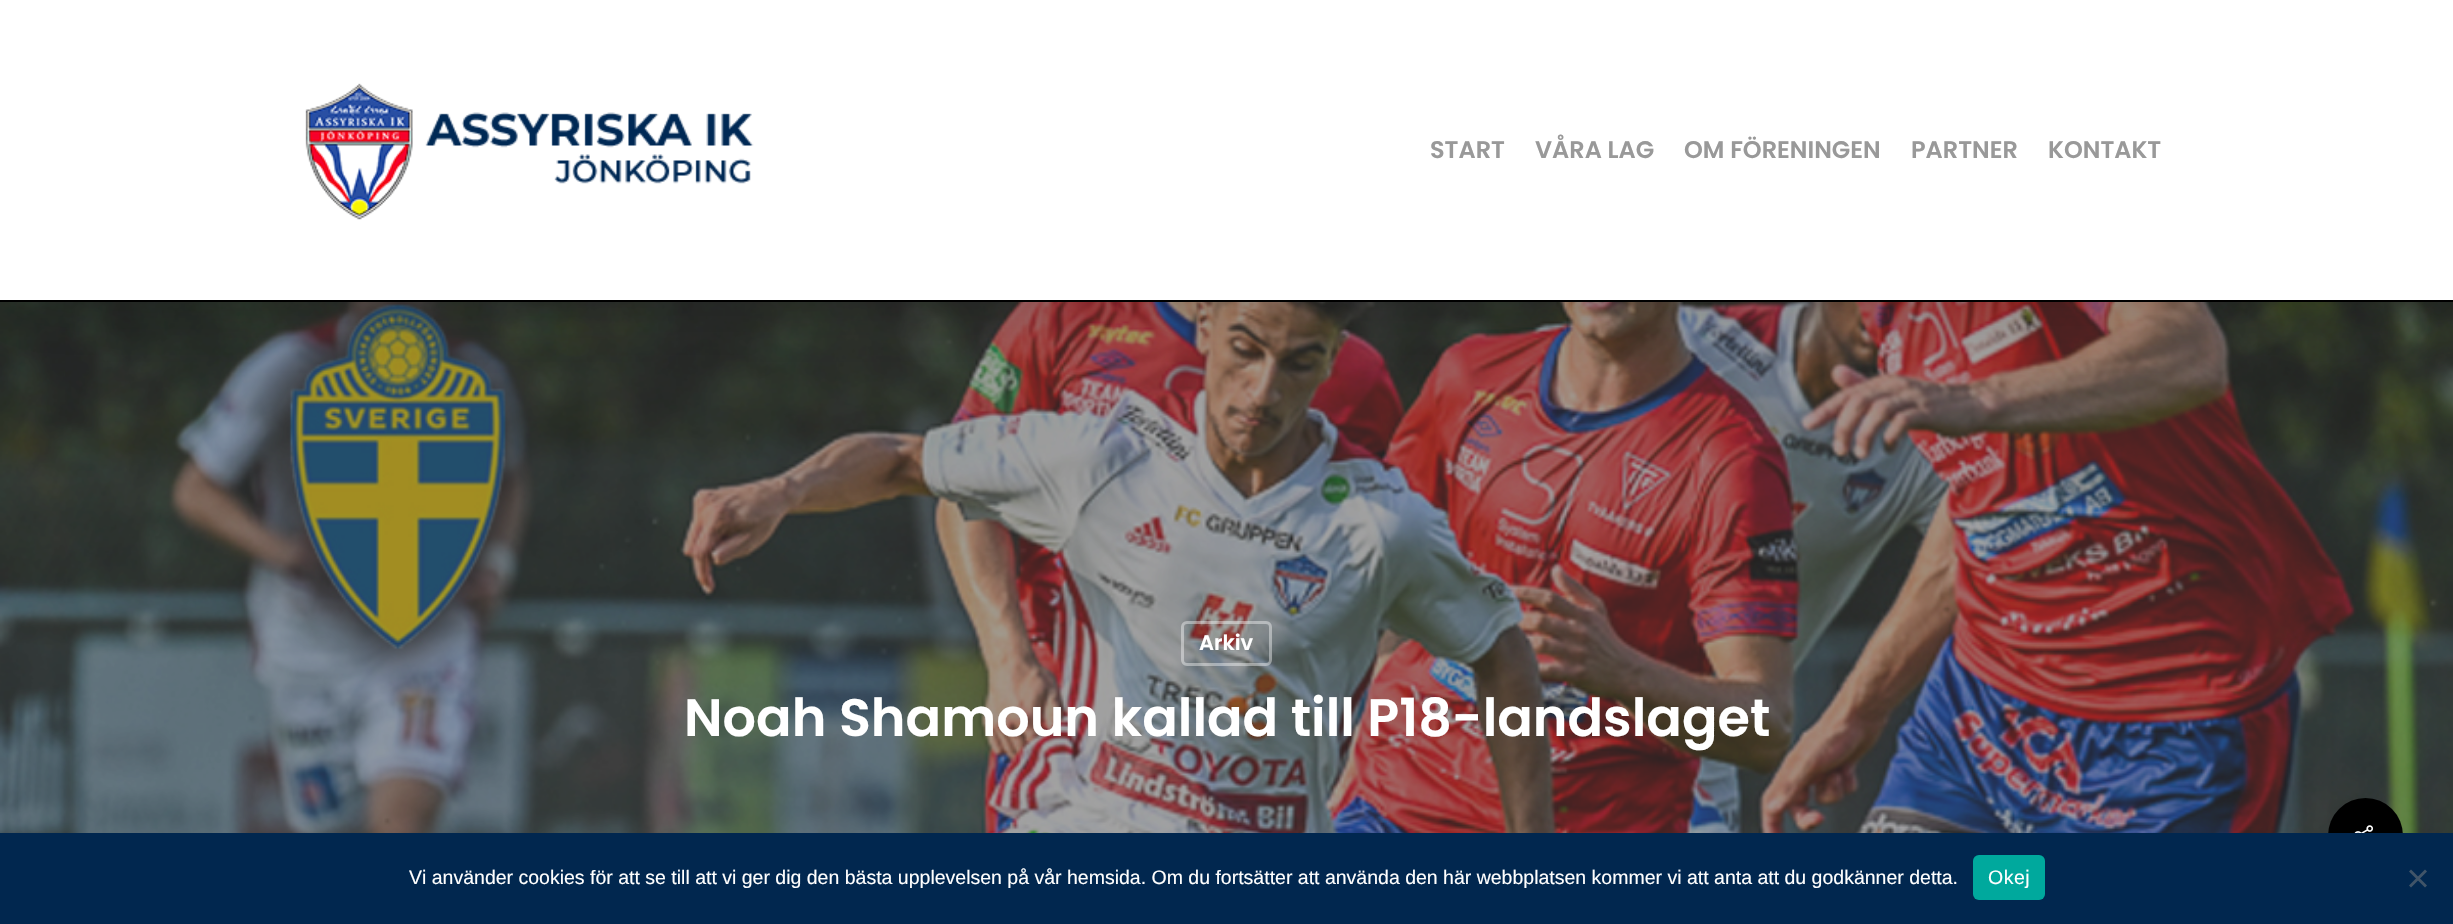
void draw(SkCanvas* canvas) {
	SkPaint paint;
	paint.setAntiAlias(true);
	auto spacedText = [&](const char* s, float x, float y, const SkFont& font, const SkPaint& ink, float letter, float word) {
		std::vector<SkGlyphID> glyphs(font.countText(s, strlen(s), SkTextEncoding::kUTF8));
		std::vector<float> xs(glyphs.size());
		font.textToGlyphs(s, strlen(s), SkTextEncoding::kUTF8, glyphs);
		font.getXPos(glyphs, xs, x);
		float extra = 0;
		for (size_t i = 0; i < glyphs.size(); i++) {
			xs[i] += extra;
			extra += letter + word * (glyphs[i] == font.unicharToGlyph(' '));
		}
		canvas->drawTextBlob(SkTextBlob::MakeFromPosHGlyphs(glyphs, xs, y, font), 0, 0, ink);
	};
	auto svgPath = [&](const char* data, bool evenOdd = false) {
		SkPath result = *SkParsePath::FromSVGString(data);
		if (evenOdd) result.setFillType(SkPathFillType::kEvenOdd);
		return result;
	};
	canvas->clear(0xffffffff);
	canvas->drawImageRect(SkImages::DeferredFromEncodedData(SkData::MakeFromFileName("img2.png")), SkRect::MakeXYWH(0, 302, 2453, 531), SkSamplingOptions());
	paint.setColor(0x26000000);
	paint.setMaskFilter(SkMaskFilter::MakeBlur(kNormal_SkBlurStyle, 34));
	canvas->drawRect(SkRect::MakeXYWH(0, 5, 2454, 301), paint);
	paint.setMaskFilter(nullptr);
	paint.setColor(0xffffffff);
	canvas->drawRect(SkRect::MakeXYWH(0, 0, 2453, 300), paint);
	paint.setColor(0xff000000);
	canvas->drawRect(SkRect::MakeXYWH(0, 300, 2453, 2), paint);
	canvas->drawImageRect(SkImages::DeferredFromEncodedData(SkData::MakeFromFileName("img1.png")), SkRect::MakeXYWH(305, 83, 449, 137), SkSamplingOptions());
	SkFont f1(fontMgr->matchFamilyStyle("Poppins", SkFontStyle(600, SkFontStyle::kNormal_Width, SkFontStyle::kUpright_Slant)), 24);
	f1.setSubpixel(true);
	paint.setColor(0xff999999);
	canvas->drawString("START", 1430, 158, f1, paint);
	canvas->drawString("VÅRA LAG", 1535, 158, f1, paint);
	canvas->drawString("OM FÖRENINGEN", 1684, 158, f1, paint);
	canvas->drawString("PARTNER", 1911, 158, f1, paint);
	canvas->drawString("KONTAKT", 2048, 158, f1, paint);
	paint.setStroke(true);
	paint.setStrokeWidth(3);
	paint.setColor(0x66ffffff);
	canvas->drawRoundRect(SkRect::MakeXYWH(1182.5, 622.5, 88, 42), 4.5, 4.5, paint);
	SkFont f2(fontMgr->matchFamilyStyle("Poppins", SkFontStyle(600, SkFontStyle::kNormal_Width, SkFontStyle::kUpright_Slant)), 21);
	f2.setSubpixel(true);
	paint.setStroke(false);
	paint.setColor(0xffffffff);
	canvas->drawString("Arkiv", 1199, 650, f2, paint);
	SkFont f3(fontMgr->matchFamilyStyle("Poppins", SkFontStyle(600, SkFontStyle::kNormal_Width, SkFontStyle::kUpright_Slant)), 52.5);
	f3.setSubpixel(true);
	canvas->drawString("Noah Shamoun kallad till P18-landslaget", 684, 736, f3, paint);
	paint.setColor(0xff000000);
	canvas->drawCircle(2365.5, 835.5, 37.5, paint);
	canvas->drawImageRect(SkImages::DeferredFromEncodedData(SkData::MakeFromFileName("img3.png")), SkRect::MakeXYWH(2354, 825, 19, 8), SkSamplingOptions());
	paint.setColor(0xff01274f);
	canvas->drawRect(SkRect::MakeXYWH(0, 833, 2453, 91), paint);
	SkFont f4(fontMgr->matchFamilyStyle("Liberation Sans", SkFontStyle::Normal()), 19.5);
	f4.setSubpixel(true);
	paint.setColor(0xffffffff);
	canvas->drawString("Vi använder cookies för att se till att vi ger dig den bästa upplevelsen på vår hemsida. Om du fortsätter att använda den här webbplatsen kommer vi att anta att du godkänner detta.", 409, 884, f4, paint);
	paint.setColor(0xff00a99d);
	canvas->drawRoundRect(SkRect::MakeXYWH(1973, 855, 72, 45), 6, 6, paint);
	paint.setColor(0xffffffff);
	spacedText("Okej", 1988, 884, f4, paint, 0.5, 0);
	paint.setColor(0xff415468);
	canvas->drawPath(svgPath("M2425 869.5L2427 871.5L2411 887.5L2409 885.5Z"), paint);
	canvas->drawPath(svgPath("M2409 871.5L2411 869.5L2427 885.5L2425 887.5Z"), paint);
}
